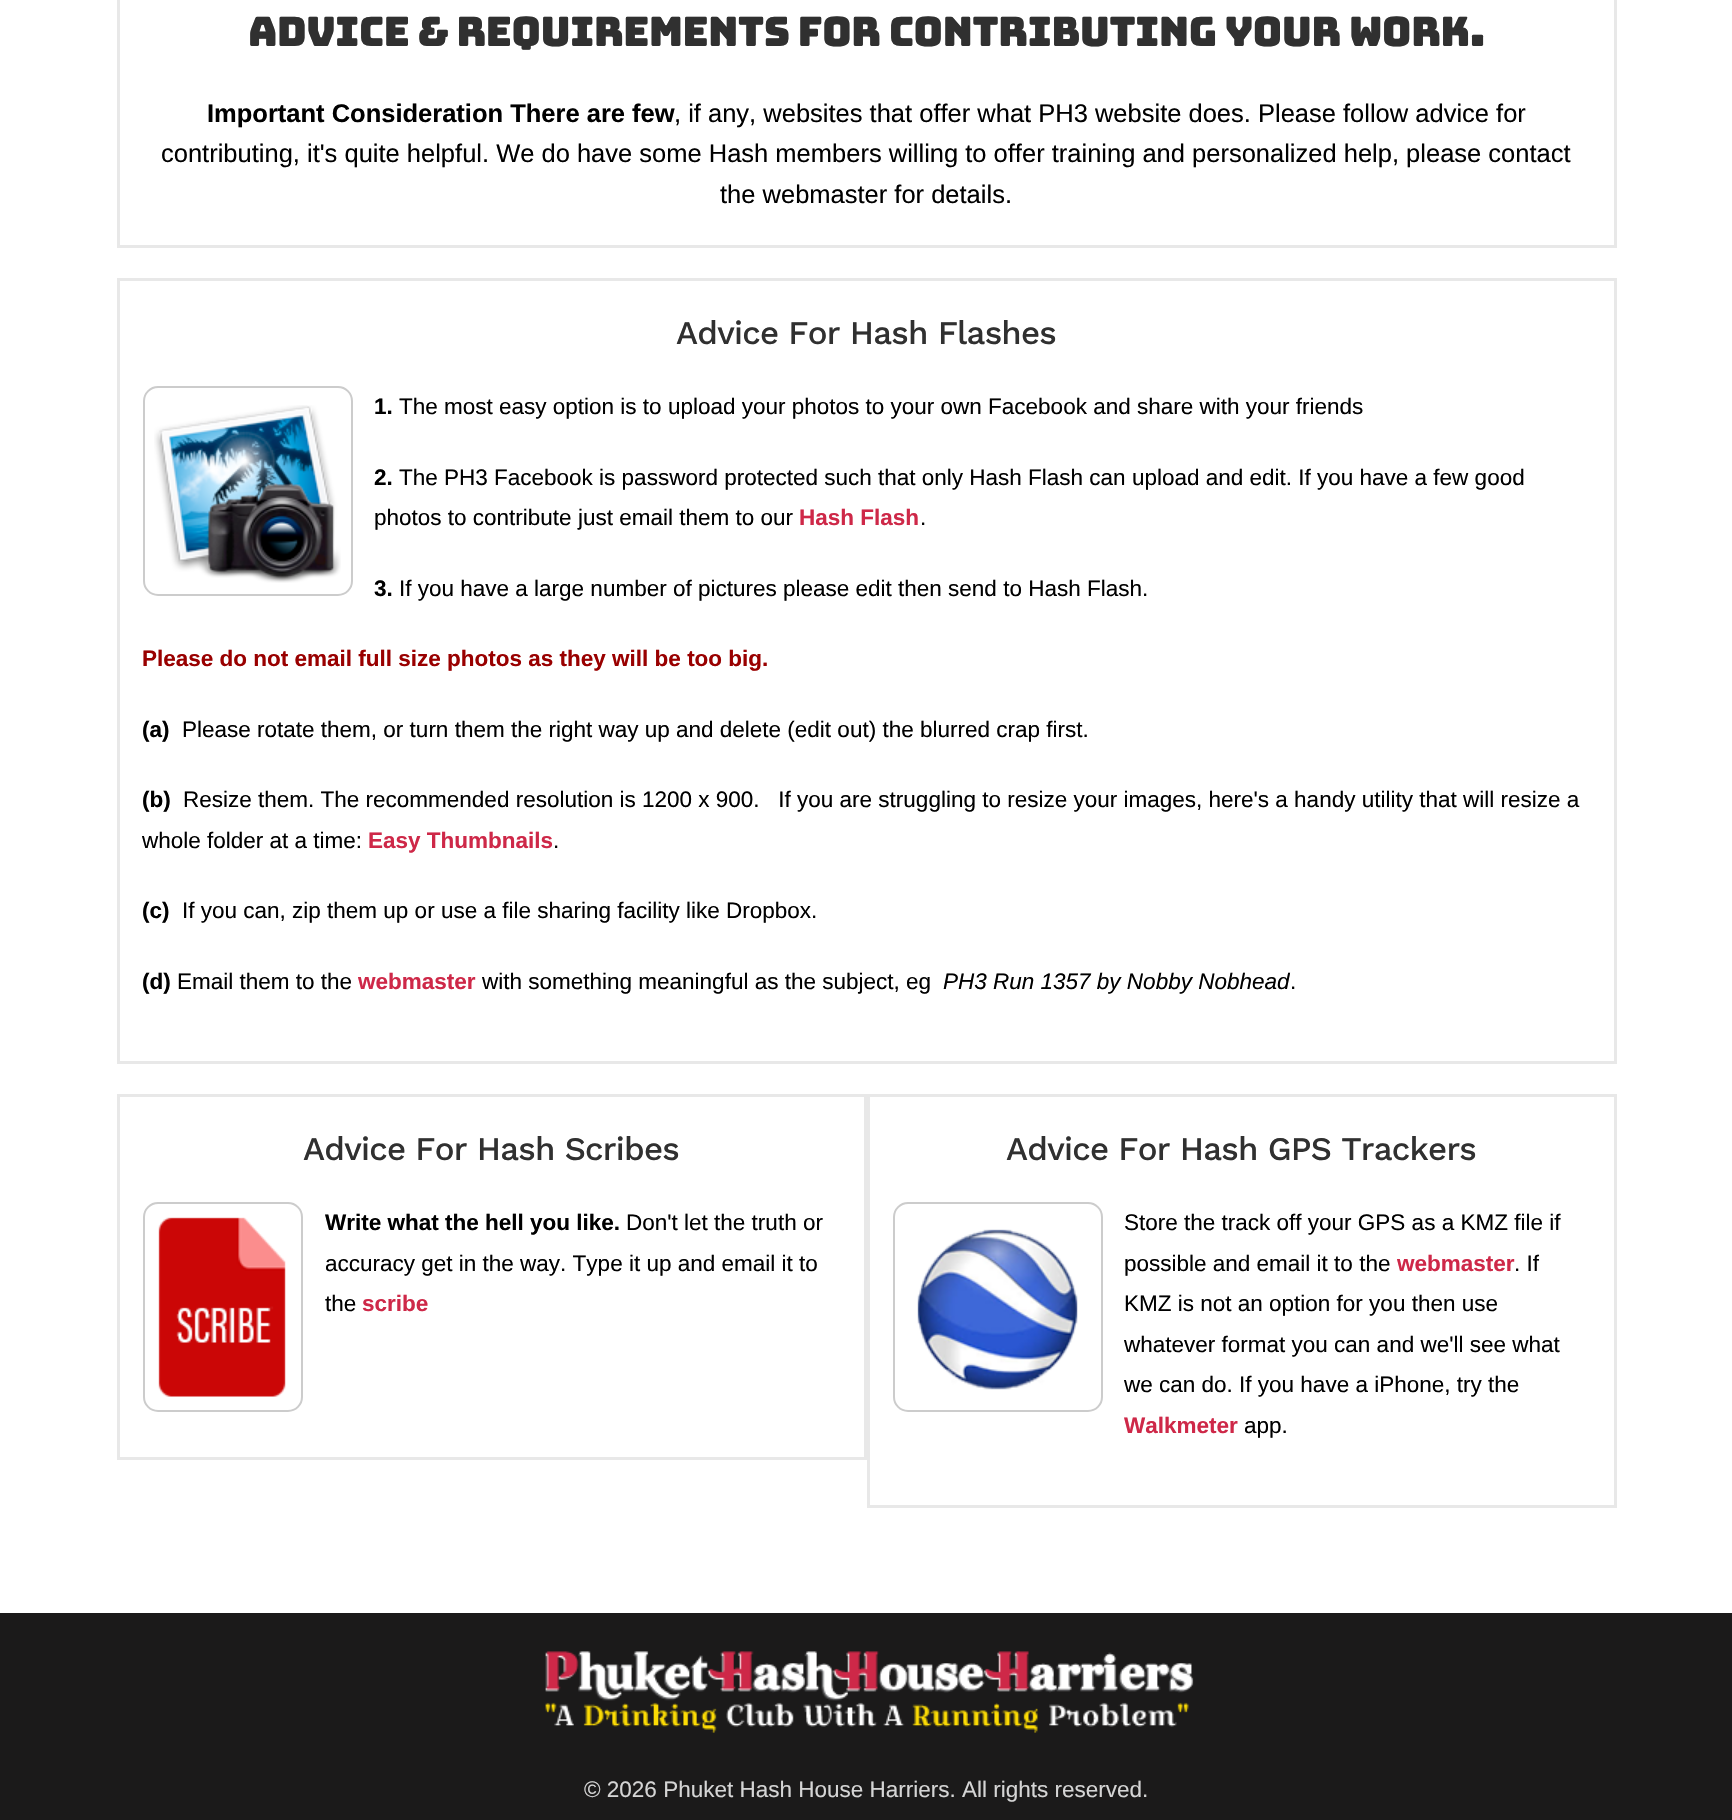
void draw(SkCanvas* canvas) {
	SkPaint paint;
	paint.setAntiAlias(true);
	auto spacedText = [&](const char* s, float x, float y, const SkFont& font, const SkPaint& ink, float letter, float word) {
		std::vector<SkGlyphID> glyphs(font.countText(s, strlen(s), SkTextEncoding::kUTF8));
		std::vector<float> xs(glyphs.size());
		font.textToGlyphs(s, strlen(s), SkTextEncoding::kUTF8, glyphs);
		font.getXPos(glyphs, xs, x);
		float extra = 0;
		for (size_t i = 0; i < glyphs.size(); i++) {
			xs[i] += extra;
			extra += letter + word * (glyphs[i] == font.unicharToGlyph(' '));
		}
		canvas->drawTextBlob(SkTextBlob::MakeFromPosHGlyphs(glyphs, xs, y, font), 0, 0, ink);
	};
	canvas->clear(0xffffffff);
	paint.setStroke(true);
	paint.setStrokeWidth(3);
	paint.setColor(0xffe8e8e8);
	canvas->drawRect(SkRect::MakeXYWH(118.5, -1.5, 1497, 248), paint);
	SkFont f1(fontMgr->matchFamilyStyle("Bungee", SkFontStyle::Normal()), 40.5);
	f1.setSubpixel(true);
	paint.setStroke(false);
	paint.setColor(0xff303030);
	spacedText("Advice & Requirements for contributing your work.", 248, 46, f1, paint, -0.75, 0);
	SkFont f2(fontMgr->matchFamilyStyle("Liberation Sans", SkFontStyle::Bold()), 25.5);
	f2.setSubpixel(true);
	paint.setColor(0xff000000);
	canvas->drawString("Important Consideration There are few", 207, 122, f2, paint);
	SkFont f3(fontMgr->matchFamilyStyle("Liberation Sans", SkFontStyle::Normal()), 25.5);
	f3.setSubpixel(true);
	canvas->drawString(", if any, websites that offer what PH3 website does. Please follow advice for", 674, 122, f3, paint);
	canvas->drawString("contributing, it's quite helpful. We do have some Hash members willing to offer training and personalized help, please contact", 161, 162, f3, paint);
	canvas->drawString("the webmaster for details.", 720, 203, f3, paint);
	paint.setStroke(true);
	paint.setColor(0xffe8e8e8);
	canvas->drawRect(SkRect::MakeXYWH(118.5, 279.5, 1497, 783), paint);
	SkFont f4(fontMgr->matchFamilyStyle("Work Sans", SkFontStyle(500, SkFontStyle::kNormal_Width, SkFontStyle::kUpright_Slant)), 33);
	f4.setSubpixel(true);
	paint.setStroke(false);
	paint.setColor(0xff303030);
	spacedText("Advice For Hash Flashes", 676, 344, f4, paint, -0.75, 0);
	paint.setStroke(true);
	paint.setStrokeWidth(2);
	paint.setColor(0xffcccccc);
	canvas->drawRoundRect(SkRect::MakeXYWH(144, 387, 208, 208), 14, 14, paint);
	canvas->drawImageRect(SkImages::DeferredFromEncodedData(SkData::MakeFromFileName("img1.png")), SkRect::MakeXYWH(154, 405, 187, 178), SkSamplingOptions());
	SkFont f5(fontMgr->matchFamilyStyle("Liberation Sans", SkFontStyle::Bold()), 22.5);
	f5.setSubpixel(true);
	paint.setStroke(false);
	paint.setColor(0xff000000);
	canvas->drawString("1.", 374, 414, f5, paint);
	SkFont f6(fontMgr->matchFamilyStyle("Liberation Sans", SkFontStyle::Normal()), 22.5);
	f6.setSubpixel(true);
	canvas->drawString("The most easy option is to upload your photos to your own Facebook and share with your friends", 399, 414, f6, paint);
	canvas->drawString("2.", 374, 485, f5, paint);
	canvas->drawString("The PH3 Facebook is password protected such that only Hash Flash can upload and edit. If you have a few good", 399, 485, f6, paint);
	canvas->drawString("photos to contribute just email them to our", 374, 525, f6, paint);
	paint.setColor(0xffce2848);
	canvas->drawString("Hash Flash", 799, 525, f5, paint);
	paint.setColor(0xff000000);
	canvas->drawString(".", 920, 525, f6, paint);
	canvas->drawString("3.", 374, 596, f5, paint);
	canvas->drawString("If you have a large number of pictures please edit then send to Hash Flash.", 399, 596, f6, paint);
	paint.setColor(0xff990000);
	canvas->drawString("Please do not email full size photos as they will be too big.", 142, 666, f5, paint);
	paint.setColor(0xff000000);
	canvas->drawString("(a)", 142, 737, f5, paint);
	canvas->drawString("Please rotate them, or turn them the right way up and delete (edit out) the blurred crap first.", 182, 737, f6, paint);
	canvas->drawString("(b)", 142, 807, f5, paint);
	canvas->drawString("Resize them. The recommended resolution is 1200 x 900.   If you are struggling to resize your images, here's a handy utility that will resize a", 183, 807, f6, paint);
	canvas->drawString("whole folder at a time:", 142, 848, f6, paint);
	paint.setColor(0xffce2848);
	canvas->drawString("Easy Thumbnails", 368, 848, f5, paint);
	paint.setColor(0xff000000);
	canvas->drawString(".", 553, 848, f6, paint);
	canvas->drawString("(c)", 142, 918, f5, paint);
	canvas->drawString("If you can, zip them up or use a file sharing facility like Dropbox.", 182, 918, f6, paint);
	canvas->drawString("(d)", 142, 989, f5, paint);
	canvas->drawString("Email them to the", 177, 989, f6, paint);
	paint.setColor(0xffce2848);
	canvas->drawString("webmaster", 358, 989, f5, paint);
	paint.setColor(0xff000000);
	canvas->drawString("with something meaningful as the subject, eg", 482, 989, f6, paint);
	SkFont f7(fontMgr->matchFamilyStyle("Liberation Sans", SkFontStyle::Italic()), 22.5);
	f7.setSubpixel(true);
	canvas->drawString("PH3 Run 1357 by Nobby Nobhead", 943, 989, f7, paint);
	canvas->drawString(".", 1290, 989, f6, paint);
	paint.setStroke(true);
	paint.setStrokeWidth(3);
	paint.setColor(0xffe8e8e8);
	canvas->drawRect(SkRect::MakeXYWH(118.5, 1095.5, 747, 363), paint);
	paint.setStroke(false);
	paint.setColor(0xff303030);
	spacedText("Advice For Hash Scribes", 303, 1160, f4, paint, -0.75, 0);
	paint.setStroke(true);
	paint.setStrokeWidth(2);
	paint.setColor(0xffcccccc);
	canvas->drawRoundRect(SkRect::MakeXYWH(144, 1203, 158, 208), 14, 14, paint);
	canvas->drawImageRect(SkImages::DeferredFromEncodedData(SkData::MakeFromFileName("img2.png")), SkRect::MakeXYWH(158, 1217, 128, 180), SkSamplingOptions());
	paint.setStroke(false);
	paint.setColor(0xff000000);
	canvas->drawString("Write what the hell you like.", 325, 1230, f5, paint);
	canvas->drawString("Don't let the truth or", 626, 1230, f6, paint);
	canvas->drawString("accuracy get in the way. Type it up and email it to", 325, 1271, f6, paint);
	canvas->drawString("the", 325, 1311, f6, paint);
	paint.setColor(0xffce2848);
	canvas->drawString("scribe", 362, 1311, f5, paint);
	paint.setStroke(true);
	paint.setStrokeWidth(3);
	paint.setColor(0xffe8e8e8);
	canvas->drawRect(SkRect::MakeXYWH(868.5, 1095.5, 747, 411), paint);
	paint.setStroke(false);
	paint.setColor(0xff303030);
	spacedText("Advice For Hash GPS Trackers", 1006, 1160, f4, paint, -0.75, 0);
	paint.setStroke(true);
	paint.setStrokeWidth(2);
	paint.setColor(0xffcccccc);
	canvas->drawRoundRect(SkRect::MakeXYWH(894, 1203, 208, 208), 14, 14, paint);
	canvas->drawImageRect(SkImages::DeferredFromEncodedData(SkData::MakeFromFileName("img3.png")), SkRect::MakeXYWH(917, 1229, 161, 161), SkSamplingOptions());
	paint.setStroke(false);
	paint.setColor(0xff000000);
	canvas->drawString("Store the track off your GPS as a KMZ file if", 1124, 1230, f6, paint);
	canvas->drawString("possible and email it to the", 1124, 1271, f6, paint);
	paint.setColor(0xffce2848);
	canvas->drawString("webmaster", 1397, 1271, f5, paint);
	paint.setColor(0xff000000);
	canvas->drawString(". If", 1514, 1271, f6, paint);
	canvas->drawString("KMZ is not an option for you then use", 1124, 1311, f6, paint);
	canvas->drawString("whatever format you can and we'll see what", 1124, 1352, f6, paint);
	canvas->drawString("we can do. If you have a iPhone, try the", 1124, 1392, f6, paint);
	paint.setColor(0xffce2848);
	canvas->drawString("Walkmeter", 1124, 1433, f5, paint);
	paint.setColor(0xff000000);
	canvas->drawString("app.", 1244, 1433, f6, paint);
	paint.setColor(0xff1b1a1a);
	canvas->drawRect(SkRect::MakeXYWH(0, 1613, 1732, 207), paint);
	canvas->drawImageRect(SkImages::DeferredFromEncodedData(SkData::MakeFromFileName("img4.png")), SkRect::MakeXYWH(545, 1651, 649, 82), SkSamplingOptions());
	paint.setColor(0xffd5d5d5);
	canvas->drawString("© 2026 Phuket Hash House Harriers. All rights reserved.", 584, 1797, f6, paint);
}
